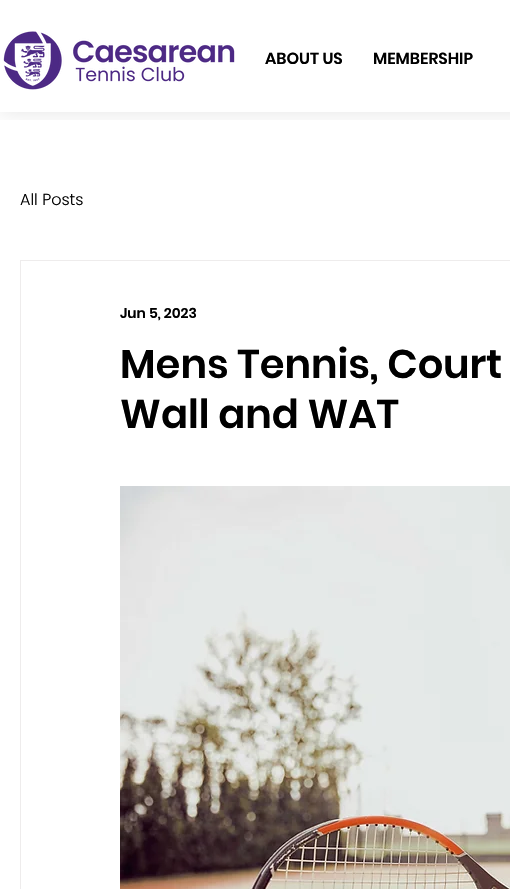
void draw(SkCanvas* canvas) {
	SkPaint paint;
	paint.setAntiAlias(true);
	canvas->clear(0xffffffff);
	canvas->save();
	canvas->clipRect(SkRect::MakeXYWH(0, 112, 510, 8));
	paint.setColor(0x1a000000);
	paint.setMaskFilter(SkMaskFilter::MakeBlur(kNormal_SkBlurStyle, 10));
	canvas->drawRect(SkRect::MakeXYWH(0, 0, 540, 112), paint);
	paint.setMaskFilter(nullptr);
	canvas->restore();
	canvas->drawImageRect(SkImages::DeferredFromEncodedData(SkData::MakeFromFileName("img1.png")), SkRect::MakeXYWH(3, 31, 232, 59), SkSamplingOptions());
	SkFont f1(fontMgr->matchFamilyStyle("Poppins", SkFontStyle(600, SkFontStyle::kNormal_Width, SkFontStyle::kUpright_Slant)), 16);
	f1.setSubpixel(true);
	paint.setColor(0xff000000);
	canvas->drawString("ABOUT US", 265, 64, f1, paint);
	canvas->drawString("MEMBERSHIP", 373, 64, f1, paint);
	SkFont f2(fontMgr->matchFamilyStyle("Poppins", SkFontStyle(300, SkFontStyle::kNormal_Width, SkFontStyle::kUpright_Slant)), 16);
	f2.setSubpixel(true);
	canvas->drawString("All Posts", 20, 205, f2, paint);
	paint.setStroke(true);
	paint.setStrokeWidth(1);
	paint.setColor(0xffeeecec);
	canvas->drawRect(SkRect::MakeXYWH(20.5, 260.5, 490, 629), paint);
	SkFont f3(fontMgr->matchFamilyStyle("Poppins", SkFontStyle(600, SkFontStyle::kNormal_Width, SkFontStyle::kUpright_Slant)), 14);
	f3.setSubpixel(true);
	paint.setStroke(false);
	paint.setColor(0xff000000);
	canvas->drawString("Jun 5, 2023", 120, 318, f3, paint);
	SkFont f4(fontMgr->matchFamilyStyle("Poppins", SkFontStyle(600, SkFontStyle::kNormal_Width, SkFontStyle::kUpright_Slant)), 40);
	f4.setSubpixel(true);
	canvas->drawString("Mens Tennis, Court", 120, 378, f4, paint);
	canvas->drawString("Wall and WAT", 120, 428, f4, paint);
	canvas->drawImageRect(SkImages::DeferredFromEncodedData(SkData::MakeFromFileName("img2.png")), SkRect::MakeXYWH(120, 486, 390, 403), SkSamplingOptions());
}
